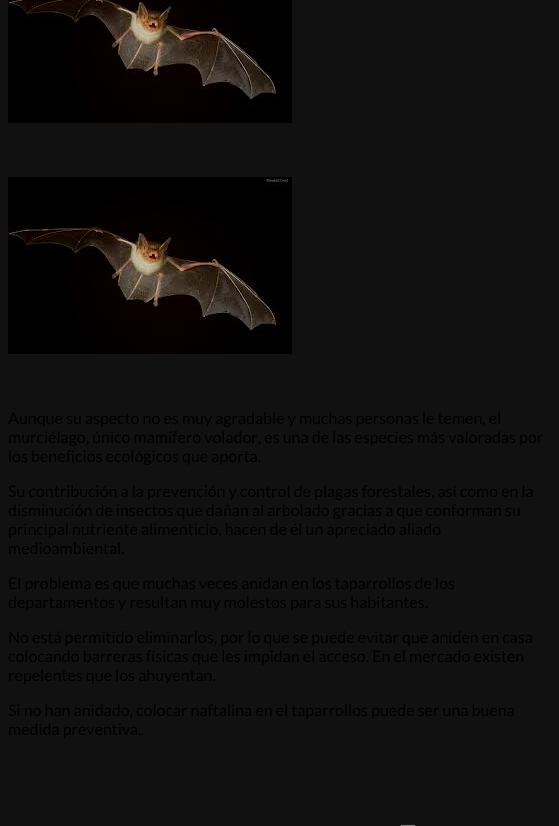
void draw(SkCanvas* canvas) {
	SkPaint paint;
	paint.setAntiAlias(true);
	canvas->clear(0xff111111);
	canvas->drawImageRect(SkImages::DeferredFromEncodedData(SkData::MakeFromFileName("img1.png")), SkRect::MakeXYWH(8, 0, 284, 123), SkSamplingOptions());
	canvas->drawImageRect(SkImages::DeferredFromEncodedData(SkData::MakeFromFileName("img2.png")), SkRect::MakeXYWH(8, 177, 284, 177), SkSamplingOptions());
	SkFont f1(fontMgr->matchFamilyStyle("Lato", SkFontStyle::Normal()), 16);
	f1.setSubpixel(true);
	paint.setColor(0xff000000);
	canvas->drawString("Aunque su aspecto no es muy agradable y muchas personas le temen, el", 8, 424, f1, paint);
	canvas->drawString("murciélago, único mamífero volador, es una de las especies más valoradas por", 8, 443, f1, paint);
	canvas->drawString("los beneficios ecológicos que aporta.", 8, 462, f1, paint);
	canvas->drawString("Su contribución a la prevención y control de plagas forestales, así como en la", 8, 497, f1, paint);
	canvas->drawString("disminución de insectos que dañan al arbolado gracias a que conforman su", 8, 516, f1, paint);
	canvas->drawString("principal nutriente alimenticio, hacen de él un apreciado aliado", 8, 535, f1, paint);
	canvas->drawString("medioambiental.", 8, 554, f1, paint);
	canvas->drawString("El problema es que muchas veces anidan en los taparrollos de los", 8, 589, f1, paint);
	canvas->drawString("departamentos y resultan muy molestos para sus habitantes.", 8, 608, f1, paint);
	canvas->drawString("No está permitido eliminarlos, por lo que se puede evitar que aniden en casa", 8, 643, f1, paint);
	canvas->drawString("colocando barreras físicas que les impidan el acceso. En el mercado existen", 8, 662, f1, paint);
	canvas->drawString("repelentes que los ahuyentan.", 8, 681, f1, paint);
	canvas->drawString("Si no han anidado, colocar naftalina en el taparrollos puede ser una buena", 8, 716, f1, paint);
	canvas->drawString("medida preventiva.", 8, 735, f1, paint);
	canvas->drawImageRect(SkImages::DeferredFromEncodedData(SkData::MakeFromFileName("img3.png")), SkRect::MakeXYWH(400, 824, 16, 2), SkSamplingOptions());
}
